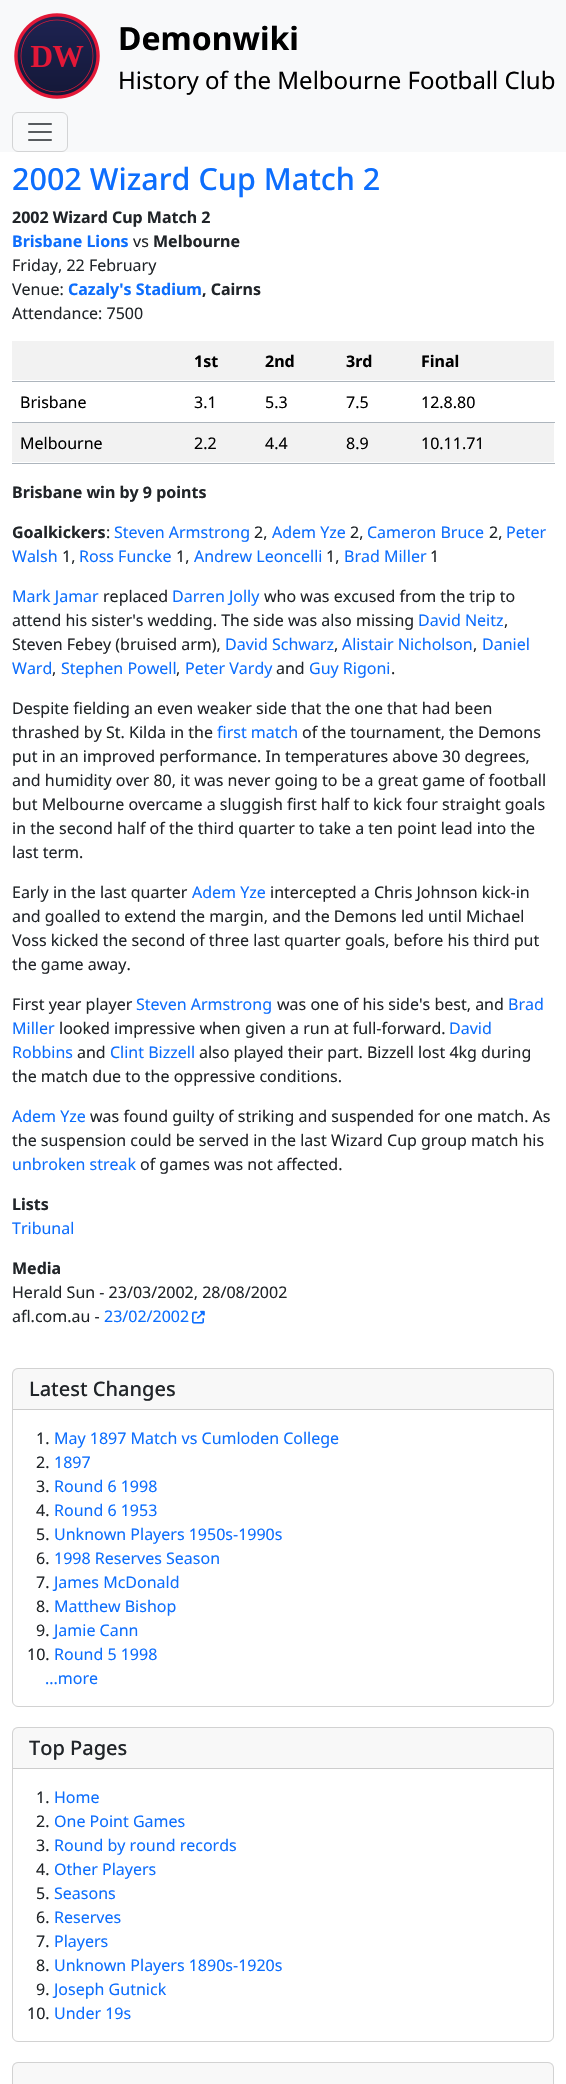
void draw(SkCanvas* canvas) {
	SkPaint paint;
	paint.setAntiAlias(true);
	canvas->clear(0xffffffff);
	paint.setColor(0xfff8f9fa);
	canvas->drawRect(SkRect::MakeXYWH(0, 0, 566, 152), paint);
	canvas->drawImageRect(SkImages::DeferredFromEncodedData(SkData::MakeFromFileName("img1.png")), SkRect::MakeXYWH(14, 13, 86, 86), SkSamplingOptions());
	SkFont f1(fontMgr->matchFamilyStyle("Noto Sans", SkFontStyle::Bold()), 32);
	f1.setSubpixel(true);
	paint.setColor(0xff000000);
	canvas->drawString("Demonwiki", 118, 50, f1, paint);
	SkFont f2(fontMgr->matchFamilyStyle("Noto Sans", SkFontStyle::Normal()), 24);
	f2.setSubpixel(true);
	canvas->drawString("History of the Melbourne Football Club", 118, 89, f2, paint);
	paint.setStroke(true);
	paint.setStrokeWidth(1);
	paint.setColor(0xffd3d4d5);
	canvas->drawRoundRect(SkRect::MakeXYWH(12.5, 112.5, 55, 39), 5.5, 5.5, paint);
	canvas->drawImageRect(SkImages::DeferredFromEncodedData(SkData::MakeFromFileName("img2.png")), SkRect::MakeXYWH(28, 123, 24, 18), SkSamplingOptions());
	SkFont f3(fontMgr->matchFamilyStyle("Noto Sans", SkFontStyle(500, SkFontStyle::kNormal_Width, SkFontStyle::kUpright_Slant)), 30.5);
	f3.setSubpixel(true);
	paint.setStroke(false);
	paint.setColor(0xff0d6efd);
	canvas->drawString("2002 Wizard Cup Match 2", 12, 190, f3, paint);
	SkFont f4(fontMgr->matchFamilyStyle("Noto Sans", SkFontStyle::Bold()), 16);
	f4.setSubpixel(true);
	paint.setColor(0xff212529);
	canvas->drawString("2002 Wizard Cup Match 2", 12, 223, f4, paint);
	paint.setColor(0xff0d6efd);
	canvas->drawString("Brisbane Lions", 12, 247, f4, paint);
	SkFont f5(fontMgr->matchFamilyStyle("Noto Sans", SkFontStyle::Normal()), 16);
	f5.setSubpixel(true);
	paint.setColor(0xff212529);
	canvas->drawString("vs", 133, 247, f5, paint);
	canvas->drawString("Melbourne", 153, 247, f4, paint);
	canvas->drawString("Friday, 22 February", 12, 271, f5, paint);
	canvas->drawString("Venue:", 12, 295, f5, paint);
	paint.setColor(0xff0d6efd);
	canvas->drawString("Cazaly's Stadium", 68, 295, f4, paint);
	paint.setColor(0xff212529);
	canvas->drawString(", Cairns", 202, 295, f4, paint);
	canvas->drawString("Attendance: 7500", 12, 319, f5, paint);
	paint.setColor(0xfff2f2f2);
	canvas->drawRect(SkRect::MakeXYWH(12, 341, 542, 39), paint);
	paint.setColor(0xff000000);
	canvas->drawString("1st", 194, 367, f4, paint);
	canvas->drawString("2nd", 265, 367, f4, paint);
	canvas->drawString("3rd", 346, 367, f4, paint);
	paint.setColor(0xffadb5bd);
	canvas->drawRect(SkRect::MakeXYWH(12, 381, 543, 1), paint);
	paint.setColor(0xff000000);
	canvas->drawString("Final", 421, 367, f4, paint);
	canvas->drawString("Brisbane", 20, 408, f5, paint);
	canvas->drawString("3.1", 194, 408, f5, paint);
	canvas->drawString("5.3", 265, 408, f5, paint);
	canvas->drawString("7.5", 346, 408, f5, paint);
	paint.setColor(0xffadb5bd);
	canvas->drawRect(SkRect::MakeXYWH(12, 422, 543, 1), paint);
	paint.setColor(0xff000000);
	canvas->drawString("12.8.80", 421, 408, f5, paint);
	paint.setColor(0xfff2f2f2);
	canvas->drawRect(SkRect::MakeXYWH(12, 423, 542, 39), paint);
	paint.setColor(0xff000000);
	canvas->drawString("Melbourne", 20, 449, f5, paint);
	canvas->drawString("2.2", 194, 449, f5, paint);
	canvas->drawString("4.4", 265, 449, f5, paint);
	canvas->drawString("8.9", 346, 449, f5, paint);
	paint.setColor(0xffadb5bd);
	canvas->drawRect(SkRect::MakeXYWH(12, 463, 543, 1), paint);
	paint.setColor(0xff000000);
	canvas->drawString("10.11.71", 421, 449, f5, paint);
	paint.setColor(0xff212529);
	canvas->drawString("Brisbane win by 9 points", 12, 498, f4, paint);
	canvas->drawString("Goalkickers", 12, 538, f4, paint);
	canvas->drawString(":", 106, 538, f5, paint);
	paint.setColor(0xff0d6efd);
	canvas->drawString("Steven Armstrong", 114, 538, f5, paint);
	paint.setColor(0xff212529);
	canvas->drawString("2,", 254, 538, f5, paint);
	paint.setColor(0xff0d6efd);
	canvas->drawString("Adem Yze", 272, 538, f5, paint);
	paint.setColor(0xff212529);
	canvas->drawString("2,", 350, 538, f5, paint);
	paint.setColor(0xff0d6efd);
	canvas->drawString("Cameron Bruce", 367, 538, f5, paint);
	paint.setColor(0xff212529);
	canvas->drawString("2,", 489, 538, f5, paint);
	paint.setColor(0xff0d6efd);
	canvas->drawString("Peter", 506, 538, f5, paint);
	canvas->drawString("Walsh", 12, 562, f5, paint);
	paint.setColor(0xff212529);
	canvas->drawString("1,", 62, 562, f5, paint);
	paint.setColor(0xff0d6efd);
	canvas->drawString("Ross Funcke", 79, 562, f5, paint);
	paint.setColor(0xff212529);
	canvas->drawString("1,", 176, 562, f5, paint);
	paint.setColor(0xff0d6efd);
	canvas->drawString("Andrew Leoncelli", 194, 562, f5, paint);
	paint.setColor(0xff212529);
	canvas->drawString("1,", 326, 562, f5, paint);
	paint.setColor(0xff0d6efd);
	canvas->drawString("Brad Miller", 344, 562, f5, paint);
	paint.setColor(0xff212529);
	canvas->drawString("1", 430, 562, f5, paint);
	paint.setColor(0xff0d6efd);
	canvas->drawString("Mark Jamar", 12, 602, f5, paint);
	paint.setColor(0xff212529);
	canvas->drawString("replaced", 103, 602, f5, paint);
	paint.setColor(0xff0d6efd);
	canvas->drawString("Darren Jolly", 172, 602, f5, paint);
	paint.setColor(0xff212529);
	canvas->drawString("who was excused from the trip to", 264, 602, f5, paint);
	canvas->drawString("attend his sister's wedding. The side was also missing", 12, 626, f5, paint);
	paint.setColor(0xff0d6efd);
	canvas->drawString("David Neitz", 418, 626, f5, paint);
	paint.setColor(0xff212529);
	canvas->drawString(",", 504, 626, f5, paint);
	canvas->drawString("Steven Febey (bruised arm),", 12, 650, f5, paint);
	paint.setColor(0xff0d6efd);
	canvas->drawString("David Schwarz", 225, 650, f5, paint);
	paint.setColor(0xff212529);
	canvas->drawString(",", 334, 650, f5, paint);
	paint.setColor(0xff0d6efd);
	canvas->drawString("Alistair Nicholson", 342, 650, f5, paint);
	paint.setColor(0xff212529);
	canvas->drawString(",", 473, 650, f5, paint);
	paint.setColor(0xff0d6efd);
	canvas->drawString("Daniel", 482, 650, f5, paint);
	canvas->drawString("Ward", 12, 674, f5, paint);
	paint.setColor(0xff212529);
	canvas->drawString(",", 52, 674, f5, paint);
	paint.setColor(0xff0d6efd);
	canvas->drawString("Stephen Powell", 61, 674, f5, paint);
	paint.setColor(0xff212529);
	canvas->drawString(",", 176, 674, f5, paint);
	paint.setColor(0xff0d6efd);
	canvas->drawString("Peter Vardy", 185, 674, f5, paint);
	paint.setColor(0xff212529);
	canvas->drawString("and", 276, 674, f5, paint);
	paint.setColor(0xff0d6efd);
	canvas->drawString("Guy Rigoni", 309, 674, f5, paint);
	paint.setColor(0xff212529);
	canvas->drawString(".", 391, 674, f5, paint);
	canvas->drawString("Despite fielding an even weaker side that the one that had been", 12, 714, f5, paint);
	canvas->drawString("thrashed by St. Kilda in the", 12, 738, f5, paint);
	paint.setColor(0xff0d6efd);
	canvas->drawString("first match", 217, 738, f5, paint);
	paint.setColor(0xff212529);
	canvas->drawString("of the tournament, the Demons", 302, 738, f5, paint);
	canvas->drawString("put in an improved performance. In temperatures above 30 degrees,", 12, 762, f5, paint);
	canvas->drawString("and humidity over 80, it was never going to be a great game of football", 12, 786, f5, paint);
	canvas->drawString("but Melbourne overcame a sluggish first half to kick four straight goals", 12, 810, f5, paint);
	canvas->drawString("in the second half of the third quarter to take a ten point lead into the", 12, 834, f5, paint);
	canvas->drawString("last term.", 12, 858, f5, paint);
	canvas->drawString("Early in the last quarter", 12, 898, f5, paint);
	paint.setColor(0xff0d6efd);
	canvas->drawString("Adem Yze", 192, 898, f5, paint);
	paint.setColor(0xff212529);
	canvas->drawString("intercepted a Chris Johnson kick-in", 270, 898, f5, paint);
	canvas->drawString("and goalled to extend the margin, and the Demons led until Michael", 12, 922, f5, paint);
	canvas->drawString("Voss kicked the second of three last quarter goals, before his third put", 12, 946, f5, paint);
	canvas->drawString("the game away.", 12, 970, f5, paint);
	canvas->drawString("First year player", 12, 1010, f5, paint);
	paint.setColor(0xff0d6efd);
	canvas->drawString("Steven Armstrong", 136, 1010, f5, paint);
	paint.setColor(0xff212529);
	canvas->drawString("was one of his side's best, and", 277, 1010, f5, paint);
	paint.setColor(0xff0d6efd);
	canvas->drawString("Brad", 508, 1010, f5, paint);
	canvas->drawString("Miller", 12, 1034, f5, paint);
	paint.setColor(0xff212529);
	canvas->drawString("looked impressive when given a run at full-forward.", 59, 1034, f5, paint);
	paint.setColor(0xff0d6efd);
	canvas->drawString("David", 449, 1034, f5, paint);
	canvas->drawString("Robbins", 12, 1058, f5, paint);
	paint.setColor(0xff212529);
	canvas->drawString("and", 77, 1058, f5, paint);
	paint.setColor(0xff0d6efd);
	canvas->drawString("Clint Bizzell", 110, 1058, f5, paint);
	paint.setColor(0xff212529);
	canvas->drawString("also played their part. Bizzell lost 4kg during", 199, 1058, f5, paint);
	canvas->drawString("the match due to the oppressive conditions.", 12, 1082, f5, paint);
	paint.setColor(0xff0d6efd);
	canvas->drawString("Adem Yze", 12, 1122, f5, paint);
	paint.setColor(0xff212529);
	canvas->drawString("was found guilty of striking and suspended for one match. As", 90, 1122, f5, paint);
	canvas->drawString("the suspension could be served in the last Wizard Cup group match his", 12, 1146, f5, paint);
	paint.setColor(0xff0d6efd);
	canvas->drawString("unbroken streak", 12, 1170, f5, paint);
	paint.setColor(0xff212529);
	canvas->drawString("of games was not affected.", 140, 1170, f5, paint);
	canvas->drawString("Lists", 12, 1210, f4, paint);
	paint.setColor(0xff0d6efd);
	canvas->drawString("Tribunal", 12, 1234, f5, paint);
	paint.setColor(0xff212529);
	canvas->drawString("Media", 12, 1274, f4, paint);
	canvas->drawString("Herald Sun - 23/03/2002, 28/08/2002", 12, 1298, f5, paint);
	canvas->drawString("afl.com.au -", 12, 1322, f5, paint);
	paint.setColor(0xff0d6efd);
	canvas->drawString("23/02/2002", 104, 1322, f5, paint);
	canvas->drawImageRect(SkImages::DeferredFromEncodedData(SkData::MakeFromFileName("img3.png")), SkRect::MakeXYWH(192, 1310, 13, 14), SkSamplingOptions());
	paint.setStroke(true);
	paint.setColor(0xffd2d2d2);
	canvas->drawRoundRect(SkRect::MakeXYWH(12.5, 1368.5, 541, 338), 5.5, 5.5, paint);
	paint.setStroke(false);
	paint.setColor(0x08212529);
	canvas->drawRect(SkRect::MakeXYWH(13, 1369, 540, 40), paint);
	paint.setColor(0xffcdcdcd);
	canvas->drawRect(SkRect::MakeXYWH(13, 1409, 540, 1), paint);
	SkFont f6(fontMgr->matchFamilyStyle("Noto Sans", SkFontStyle(500, SkFontStyle::kNormal_Width, SkFontStyle::kUpright_Slant)), 20);
	f6.setSubpixel(true);
	paint.setColor(0xff212529);
	canvas->drawString("Latest Changes", 29, 1396, f6, paint);
	canvas->drawString("1.", 36, 1444, f5, paint);
	paint.setColor(0xff0d6efd);
	canvas->drawString("May 1897 Match vs Cumloden College", 54, 1444, f5, paint);
	paint.setColor(0xff212529);
	canvas->drawString("2.", 36, 1468, f5, paint);
	paint.setColor(0xff0d6efd);
	canvas->drawString("1897", 54, 1468, f5, paint);
	paint.setColor(0xff212529);
	canvas->drawString("3.", 36, 1492, f5, paint);
	paint.setColor(0xff0d6efd);
	canvas->drawString("Round 6 1998", 54, 1492, f5, paint);
	paint.setColor(0xff212529);
	canvas->drawString("4.", 36, 1516, f5, paint);
	paint.setColor(0xff0d6efd);
	canvas->drawString("Round 6 1953", 54, 1516, f5, paint);
	paint.setColor(0xff212529);
	canvas->drawString("5.", 36, 1540, f5, paint);
	paint.setColor(0xff0d6efd);
	canvas->drawString("Unknown Players 1950s-1990s", 54, 1540, f5, paint);
	paint.setColor(0xff212529);
	canvas->drawString("6.", 36, 1564, f5, paint);
	paint.setColor(0xff0d6efd);
	canvas->drawString("1998 Reserves Season", 54, 1564, f5, paint);
	paint.setColor(0xff212529);
	canvas->drawString("7.", 36, 1588, f5, paint);
	paint.setColor(0xff0d6efd);
	canvas->drawString("James McDonald", 54, 1588, f5, paint);
	paint.setColor(0xff212529);
	canvas->drawString("8.", 36, 1612, f5, paint);
	paint.setColor(0xff0d6efd);
	canvas->drawString("Matthew Bishop", 54, 1612, f5, paint);
	paint.setColor(0xff212529);
	canvas->drawString("9.", 36, 1636, f5, paint);
	paint.setColor(0xff0d6efd);
	canvas->drawString("Jamie Cann", 54, 1636, f5, paint);
	paint.setColor(0xff212529);
	canvas->drawString("10.", 27, 1660, f5, paint);
	paint.setColor(0xff0d6efd);
	canvas->drawString("Round 5 1998", 54, 1660, f5, paint);
	canvas->drawString("...more", 45, 1684, f5, paint);
	paint.setStroke(true);
	paint.setColor(0xffd2d2d2);
	canvas->drawRoundRect(SkRect::MakeXYWH(12.5, 1727.5, 541, 314), 5.5, 5.5, paint);
	paint.setStroke(false);
	paint.setColor(0x08212529);
	canvas->drawRect(SkRect::MakeXYWH(13, 1728, 540, 40), paint);
	paint.setColor(0xffcdcdcd);
	canvas->drawRect(SkRect::MakeXYWH(13, 1768, 540, 1), paint);
	paint.setColor(0xff212529);
	canvas->drawString("Top Pages", 29, 1755, f6, paint);
	canvas->drawString("1.", 36, 1803, f5, paint);
	paint.setColor(0xff0d6efd);
	canvas->drawString("Home", 54, 1803, f5, paint);
	paint.setColor(0xff212529);
	canvas->drawString("2.", 36, 1827, f5, paint);
	paint.setColor(0xff0d6efd);
	canvas->drawString("One Point Games", 54, 1827, f5, paint);
	paint.setColor(0xff212529);
	canvas->drawString("3.", 36, 1851, f5, paint);
	paint.setColor(0xff0d6efd);
	canvas->drawString("Round by round records", 54, 1851, f5, paint);
	paint.setColor(0xff212529);
	canvas->drawString("4.", 36, 1875, f5, paint);
	paint.setColor(0xff0d6efd);
	canvas->drawString("Other Players", 54, 1875, f5, paint);
	paint.setColor(0xff212529);
	canvas->drawString("5.", 36, 1899, f5, paint);
	paint.setColor(0xff0d6efd);
	canvas->drawString("Seasons", 54, 1899, f5, paint);
	paint.setColor(0xff212529);
	canvas->drawString("6.", 36, 1923, f5, paint);
	paint.setColor(0xff0d6efd);
	canvas->drawString("Reserves", 54, 1923, f5, paint);
	paint.setColor(0xff212529);
	canvas->drawString("7.", 36, 1947, f5, paint);
	paint.setColor(0xff0d6efd);
	canvas->drawString("Players", 54, 1947, f5, paint);
	paint.setColor(0xff212529);
	canvas->drawString("8.", 36, 1971, f5, paint);
	paint.setColor(0xff0d6efd);
	canvas->drawString("Unknown Players 1890s-1920s", 54, 1971, f5, paint);
	paint.setColor(0xff212529);
	canvas->drawString("9.", 36, 1995, f5, paint);
	paint.setColor(0xff0d6efd);
	canvas->drawString("Joseph Gutnick", 54, 1995, f5, paint);
	paint.setColor(0xff212529);
	canvas->drawString("10.", 27, 2019, f5, paint);
	paint.setColor(0xff0d6efd);
	canvas->drawString("Under 19s", 54, 2019, f5, paint);
	paint.setStroke(true);
	paint.setColor(0xffd2d2d2);
	canvas->drawRoundRect(SkRect::MakeXYWH(12.5, 2062.5, 541, 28), 5.5, 5.5, paint);
	paint.setStroke(false);
	paint.setColor(0x08212529);
	canvas->drawRect(SkRect::MakeXYWH(13, 2063, 540, 21), paint);
}
